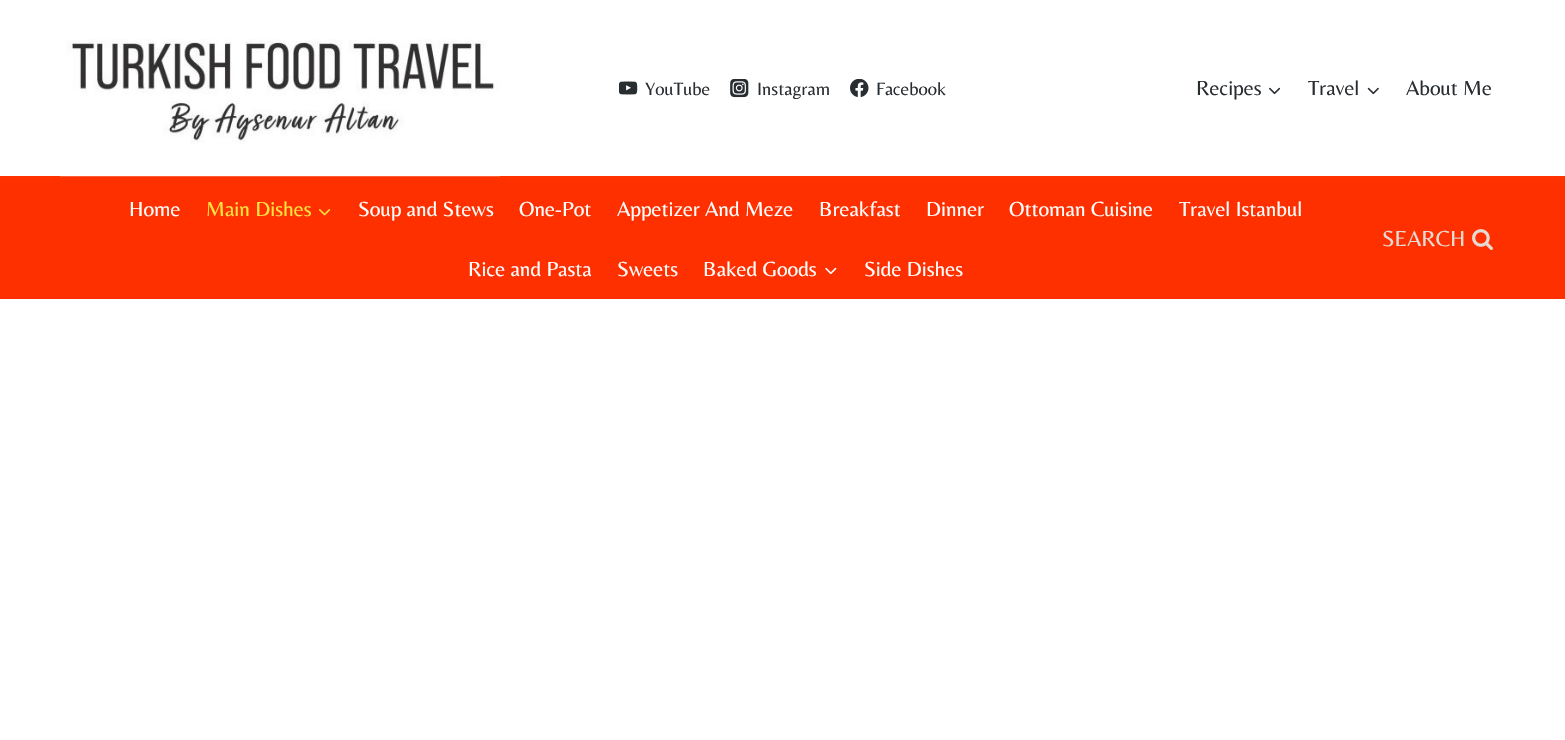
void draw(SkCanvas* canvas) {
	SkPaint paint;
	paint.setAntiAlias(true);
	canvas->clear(0xffffffff);
	paint.setColor(0xffff3300);
	canvas->drawRect(SkRect::MakeXYWH(0, 176, 1565, 4), paint);
	canvas->drawImageRect(SkImages::DeferredFromEncodedData(SkData::MakeFromFileName("img1.png")), SkRect::MakeXYWH(60, 39, 440, 138), SkSamplingOptions());
	canvas->drawImageRect(SkImages::DeferredFromEncodedData(SkData::MakeFromFileName("img2.png")), SkRect::MakeXYWH(619, 81, 19, 14), SkSamplingOptions());
	SkFont f1(fontMgr->matchFamilyStyle("Belleza", SkFontStyle::Normal()), 18.5);
	f1.setSubpixel(true);
	paint.setColor(0xff282d32);
	canvas->drawString("YouTube", 645, 95, f1, paint);
	canvas->drawImageRect(SkImages::DeferredFromEncodedData(SkData::MakeFromFileName("img3.png")), SkRect::MakeXYWH(730, 79, 19, 19), SkSamplingOptions());
	canvas->drawString("Instagram", 757, 95, f1, paint);
	canvas->drawImageRect(SkImages::DeferredFromEncodedData(SkData::MakeFromFileName("img4.png")), SkRect::MakeXYWH(850, 79, 19, 19), SkSamplingOptions());
	canvas->drawString("Facebook", 876, 95, f1, paint);
	SkFont f2(fontMgr->matchFamilyStyle("Belleza", SkFontStyle::Normal()), 21.25);
	f2.setSubpixel(true);
	canvas->drawString("Recipes", 1196, 95, f2, paint);
	canvas->drawImageRect(SkImages::DeferredFromEncodedData(SkData::MakeFromFileName("img5.png")), SkRect::MakeXYWH(1269, 87, 12, 8), SkSamplingOptions());
	canvas->drawString("Travel", 1308, 95, f2, paint);
	canvas->drawImageRect(SkImages::DeferredFromEncodedData(SkData::MakeFromFileName("img6.png")), SkRect::MakeXYWH(1367, 87, 12, 8), SkSamplingOptions());
	canvas->drawString("About Me", 1406, 95, f2, paint);
	paint.setColor(0xfffe3000);
	canvas->drawRect(SkRect::MakeXYWH(0, 180, 1565, 119), paint);
	paint.setColor(0xffffffff);
	canvas->drawString("Home", 129, 216, f2, paint);
	paint.setColor(0xffffe43f);
	canvas->drawString("Main Dishes", 206, 216, f2, paint);
	canvas->drawImageRect(SkImages::DeferredFromEncodedData(SkData::MakeFromFileName("img7.png")), SkRect::MakeXYWH(319, 209, 12, 7), SkSamplingOptions());
	paint.setColor(0xffffffff);
	canvas->drawString("Soup and Stews", 358, 216, f2, paint);
	canvas->drawString("One-Pot", 519, 216, f2, paint);
	canvas->drawString("Appetizer And Meze", 617, 216, f2, paint);
	canvas->drawString("Breakfast", 819, 216, f2, paint);
	canvas->drawString("Dinner", 926, 216, f2, paint);
	canvas->drawString("Ottoman Cuisine", 1009, 216, f2, paint);
	canvas->drawString("Travel Istanbul", 1179, 216, f2, paint);
	canvas->drawString("Rice and Pasta", 468, 276, f2, paint);
	canvas->drawString("Sweets", 617, 276, f2, paint);
	canvas->drawString("Baked Goods", 703, 276, f2, paint);
	canvas->drawImageRect(SkImages::DeferredFromEncodedData(SkData::MakeFromFileName("img8.png")), SkRect::MakeXYWH(825, 267, 12, 8), SkSamplingOptions());
	canvas->drawString("Side Dishes", 864, 276, f2, paint);
	SkFont f3(fontMgr->matchFamilyStyle("Belleza", SkFontStyle::Normal()), 22.5);
	f3.setSubpixel(true);
	paint.setColor(0xffe4dcd4);
	canvas->drawString("SEARCH", 1382, 246, f3, paint);
	canvas->drawImageRect(SkImages::DeferredFromEncodedData(SkData::MakeFromFileName("img9.png")), SkRect::MakeXYWH(1472, 229, 21, 21), SkSamplingOptions());
}
